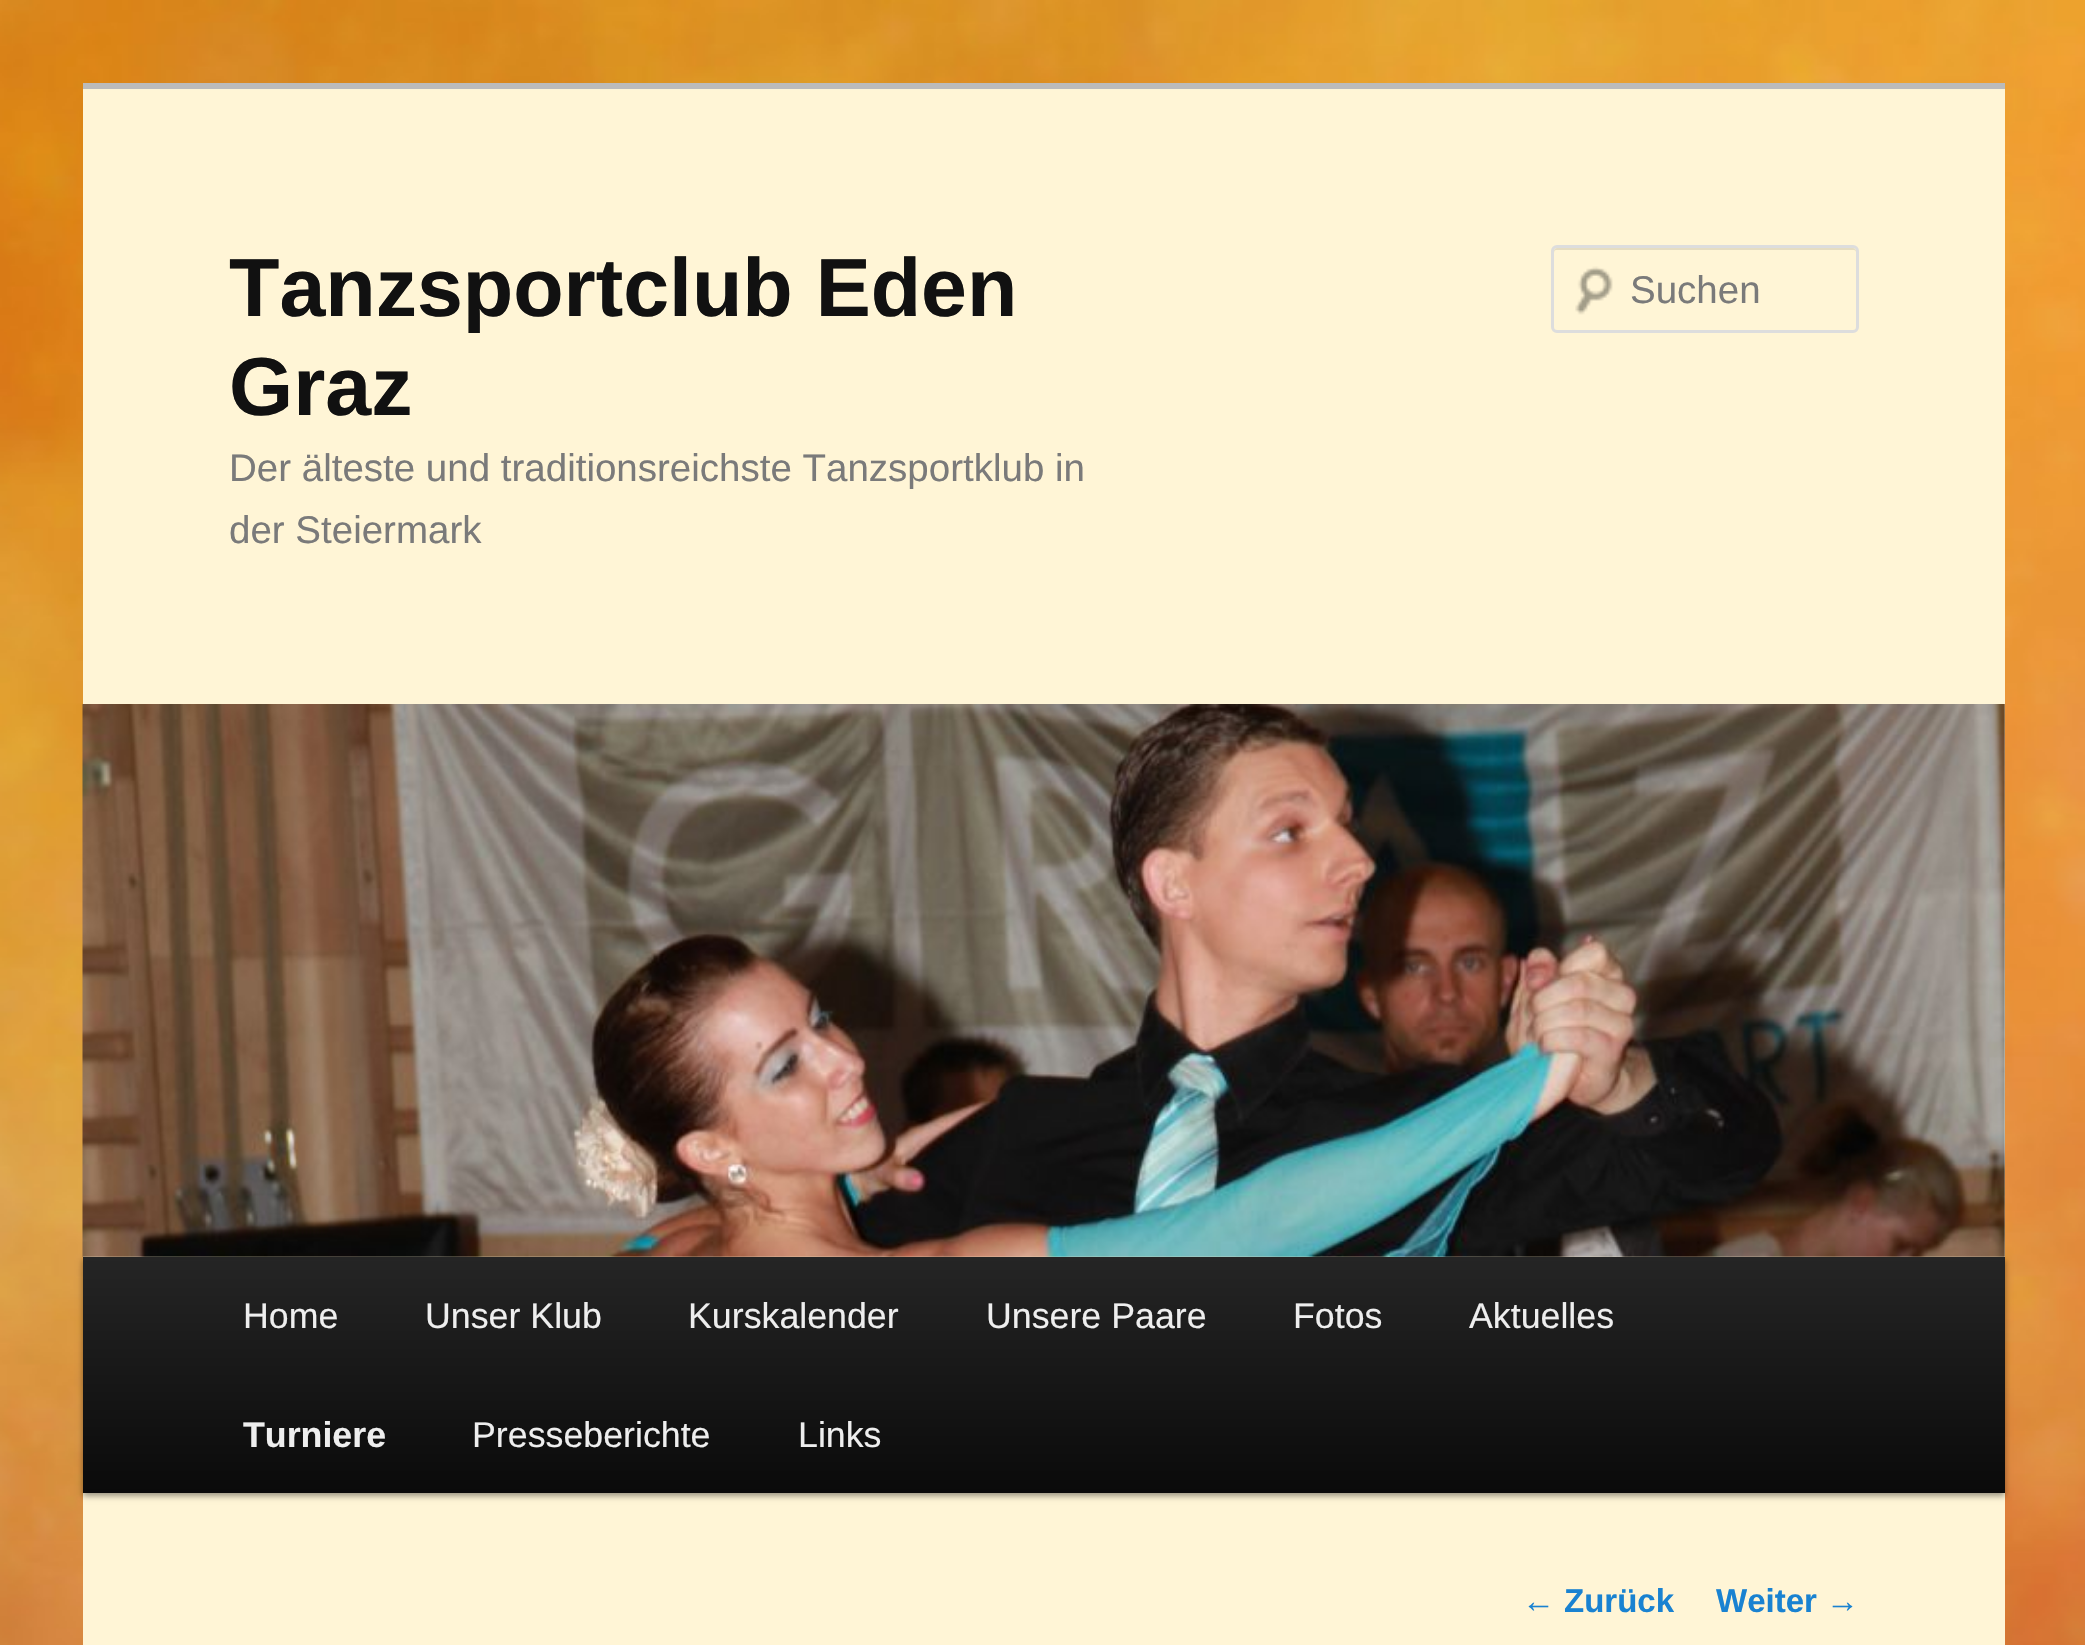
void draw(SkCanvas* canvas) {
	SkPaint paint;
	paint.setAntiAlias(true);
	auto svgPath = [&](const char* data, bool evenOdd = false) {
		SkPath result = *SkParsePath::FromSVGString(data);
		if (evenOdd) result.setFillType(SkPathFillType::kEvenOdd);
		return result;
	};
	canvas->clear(0xffffffff);
	canvas->drawImageRect(SkImages::DeferredFromEncodedData(SkData::MakeFromFileName("img1.png")), SkRect::MakeXYWH(0, 0, 2085, 1645), SkSamplingOptions());
	paint.setColor(0xfffff5d6);
	canvas->drawRect(SkRect::MakeXYWH(83, 89, 1922, 1556), paint);
	paint.setColor(0xffbbbbbb);
	canvas->drawRect(SkRect::MakeXYWH(83, 83, 1922, 6), paint);
	SkFont f1(fontMgr->matchFamilyStyle("Liberation Sans", SkFontStyle::Bold()), 82.5);
	f1.setSubpixel(true);
	paint.setColor(0xff111111);
	canvas->drawString("Tanzsportclub Eden", 229, 316, f1, paint);
	canvas->drawString("Graz", 229, 415, f1, paint);
	SkFont f2(fontMgr->matchFamilyStyle("Liberation Sans", SkFontStyle::Normal()), 38.5);
	f2.setSubpixel(true);
	paint.setColor(0xff7a7a7a);
	canvas->drawString("Der älteste und traditionsreichste Tanzsportklub in", 229, 481, f2, paint);
	canvas->drawString("der Steiermark", 229, 543, f2, paint);
	canvas->drawImageRect(SkImages::DeferredFromEncodedData(SkData::MakeFromFileName("img2.png")), SkRect::MakeXYWH(1575, 266, 38, 49), SkSamplingOptions());
	paint.setColor(0xffe6ddc1);
	canvas->drawPath(svgPath("M1556 250H1854C1855 250 1856 251 1856 253C1856 251 1856 248 1853 248H1557C1554 248 1554 251 1554 253C1554 251 1555 250 1556 250Z"), paint);
	paint.setStroke(true);
	paint.setStrokeWidth(3);
	paint.setColor(0xffdddddd);
	canvas->drawRoundRect(SkRect::MakeXYWH(1552.5, 246.5, 305, 85), 4.5, 4.5, paint);
	paint.setStroke(false);
	paint.setColor(0xff7a7a7a);
	canvas->drawString("Suchen", 1630, 303, f2, paint);
	paint.setColor(0x66000000);
	paint.setMaskFilter(SkMaskFilter::MakeBlur(kNormal_SkBlurStyle, 3));
	canvas->drawRect(SkRect::MakeXYWH(83, 1260, 1922, 236), paint);
	paint.setMaskFilter(nullptr);
	canvas->drawImageRect(SkImages::DeferredFromEncodedData(SkData::MakeFromFileName("img3.png")), SkRect::MakeXYWH(82, 704, 1923, 553), SkSamplingOptions());
	{
		const SkColor colors[] = {0xff252525, 0xff0a0a0a};
		const float stops[] = {0, 1};
		const SkPoint ends[] = {{1044, 1257}, {1044, 1493}};
		paint.setShader(SkGradientShader::MakeLinear(ends, colors, stops, 2, SkTileMode::kClamp));
		paint.setAlpha(255);
	}
	canvas->drawRect(SkRect::MakeXYWH(83, 1257, 1922, 236), paint);
	SkFont f3(fontMgr->matchFamilyStyle("Liberation Sans", SkFontStyle::Normal()), 35.75);
	f3.setSubpixel(true);
	paint.setShader(nullptr);
	paint.setColor(0xffeeeeee);
	canvas->drawString("Home", 243, 1328, f3, paint);
	canvas->drawString("Unser Klub", 425, 1328, f3, paint);
	canvas->drawString("Kurskalender", 688, 1328, f3, paint);
	canvas->drawString("Unsere Paare", 986, 1328, f3, paint);
	canvas->drawString("Fotos", 1293, 1328, f3, paint);
	canvas->drawString("Aktuelles", 1469, 1328, f3, paint);
	SkFont f4(fontMgr->matchFamilyStyle("Liberation Sans", SkFontStyle::Bold()), 35.75);
	f4.setSubpixel(true);
	canvas->drawString("Turniere", 243, 1447, f4, paint);
	canvas->drawString("Presseberichte", 472, 1447, f3, paint);
	canvas->drawString("Links", 798, 1447, f3, paint);
	SkFont f5(fontMgr->matchFamilyStyle("Liberation Sans", SkFontStyle::Normal()), 33);
	f5.setSubpixel(true);
	paint.setColor(0xff1982d1);
	canvas->drawString("←", 1522, 1612, f5, paint);
	SkFont f6(fontMgr->matchFamilyStyle("Liberation Sans", SkFontStyle::Bold()), 33);
	f6.setSubpixel(true);
	canvas->drawString("Zurück", 1564, 1612, f6, paint);
	canvas->drawString("Weiter", 1716, 1612, f6, paint);
	canvas->drawString("→", 1826, 1612, f5, paint);
}
